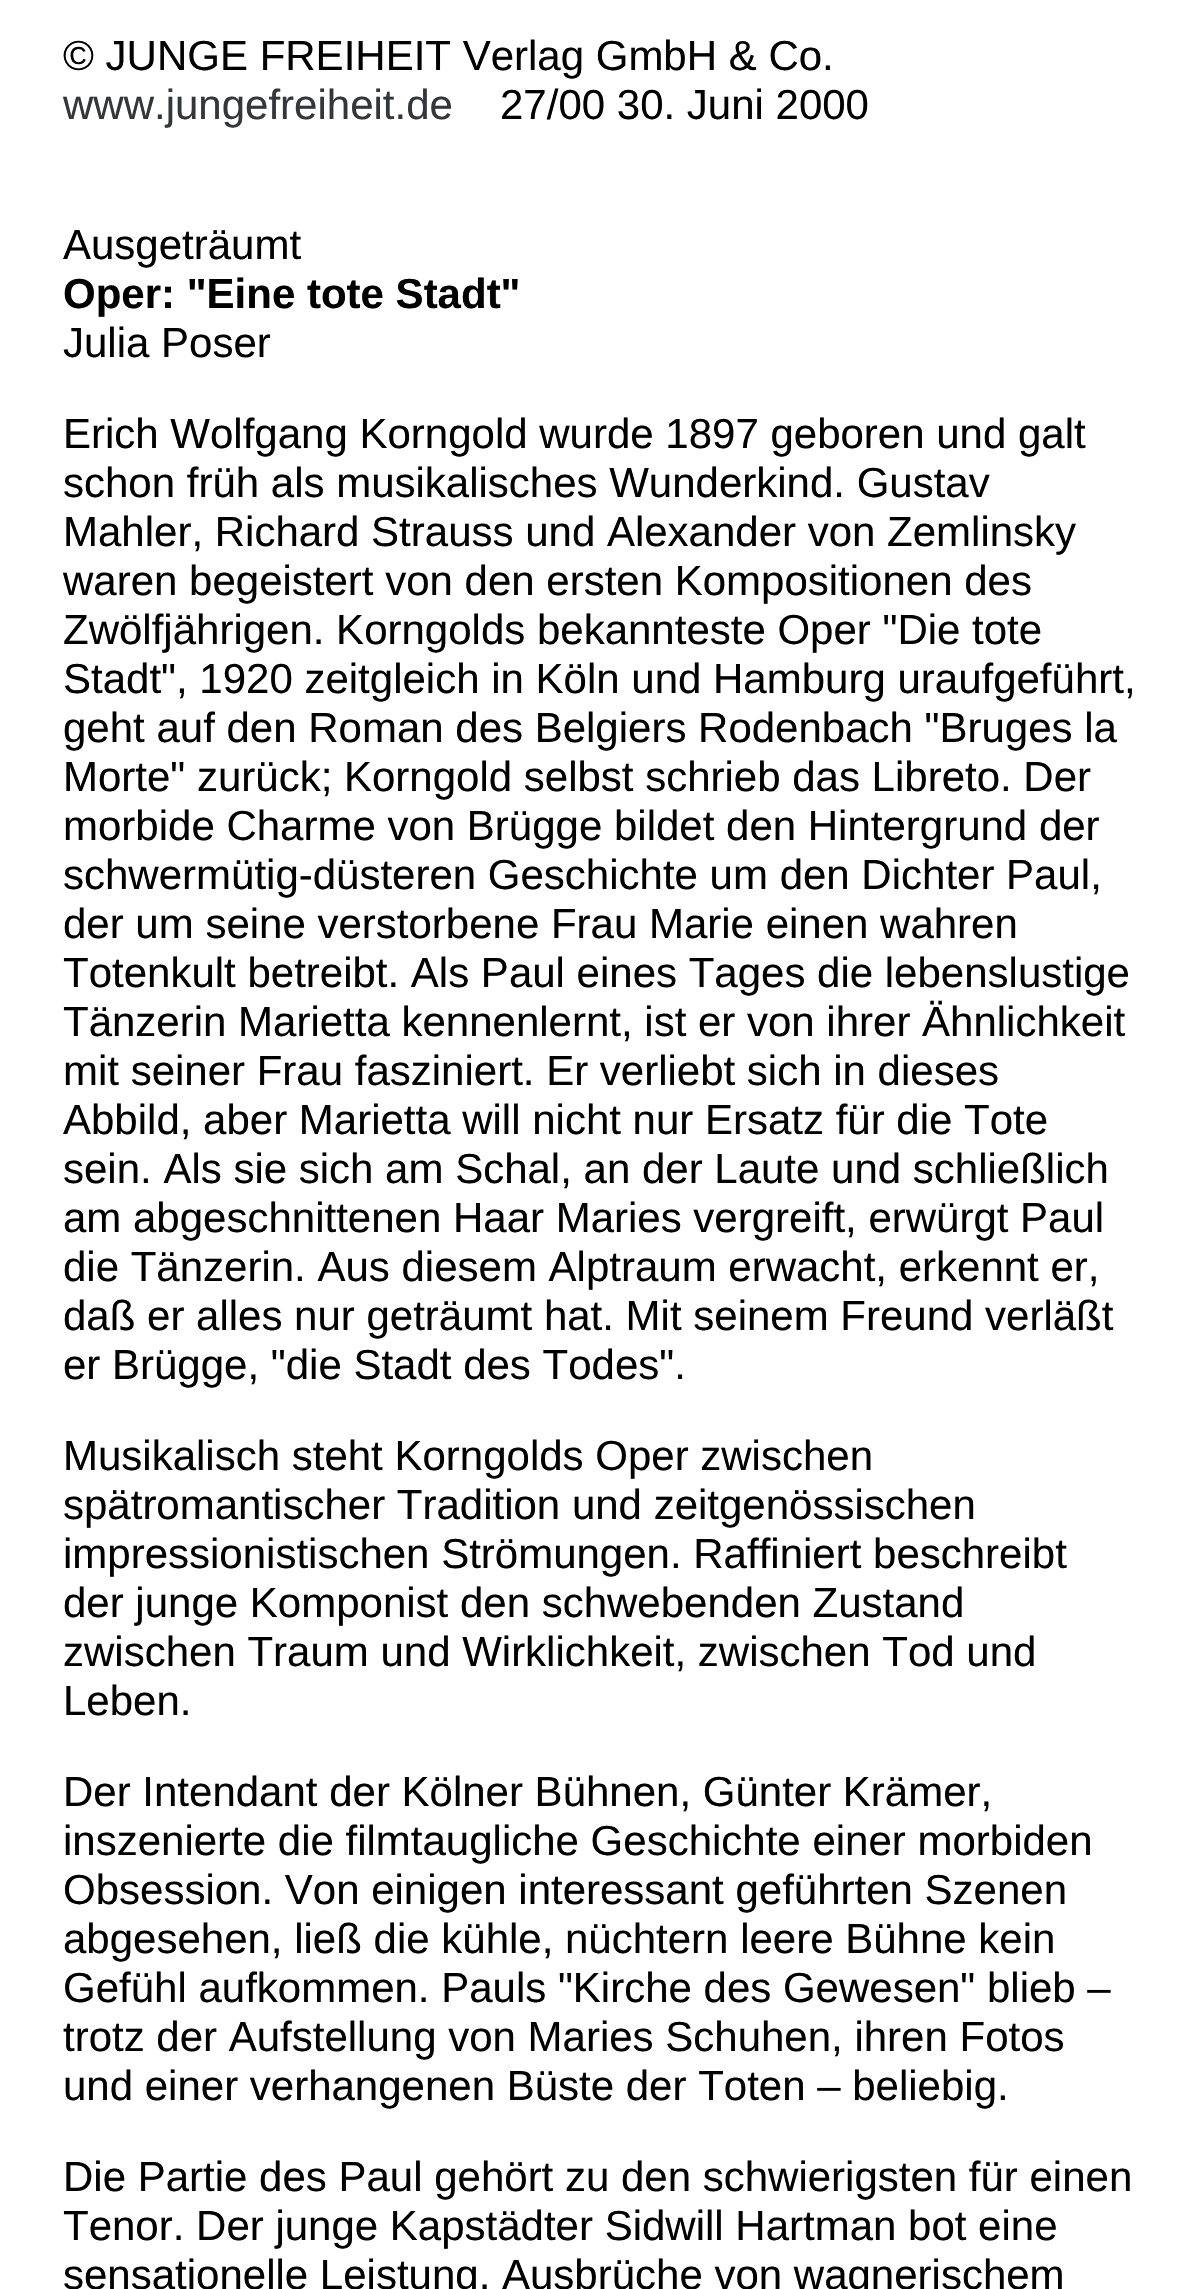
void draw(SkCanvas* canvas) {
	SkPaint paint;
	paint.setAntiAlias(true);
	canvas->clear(0xffffffff);
	SkFont f1(fontMgr->matchFamilyStyle("Liberation Sans", SkFontStyle::Normal()), 42);
	f1.setSubpixel(true);
	paint.setColor(0xff000000);
	canvas->drawString("© JUNGE FREIHEIT Verlag GmbH & Co.", 63, 70, f1, paint);
	paint.setColor(0xff33373c);
	canvas->drawString("www.jungefreiheit.de", 63, 119, f1, paint);
	paint.setColor(0xff000000);
	canvas->drawString("27/00 30. Juni 2000", 500, 119, f1, paint);
	canvas->drawString("Ausgeträumt", 63, 259, f1, paint);
	SkFont f2(fontMgr->matchFamilyStyle("Liberation Sans", SkFontStyle::Bold()), 42);
	f2.setSubpixel(true);
	canvas->drawString("Oper: \"Eine tote Stadt\"", 63, 308, f2, paint);
	canvas->drawString("Julia Poser", 63, 357, f1, paint);
	canvas->drawString("Erich Wolfgang Korngold wurde 1897 geboren und galt", 63, 448, f1, paint);
	canvas->drawString("schon früh als musikalisches Wunderkind. Gustav", 63, 497, f1, paint);
	canvas->drawString("Mahler, Richard Strauss und Alexander von Zemlinsky", 63, 546, f1, paint);
	canvas->drawString("waren begeistert von den ersten Kompositionen des", 63, 595, f1, paint);
	canvas->drawString("Zwölfjährigen. Korngolds bekannteste Oper \"Die tote", 63, 644, f1, paint);
	canvas->drawString("Stadt\", 1920 zeitgleich in Köln und Hamburg uraufgeführt,", 63, 693, f1, paint);
	canvas->drawString("geht auf den Roman des Belgiers Rodenbach \"Bruges la", 63, 742, f1, paint);
	canvas->drawString("Morte\" zurück; Korngold selbst schrieb das Libreto. Der", 63, 791, f1, paint);
	canvas->drawString("morbide Charme von Brügge bildet den Hintergrund der", 63, 840, f1, paint);
	canvas->drawString("schwermütig-düsteren Geschichte um den Dichter Paul,", 63, 889, f1, paint);
	canvas->drawString("der um seine verstorbene Frau Marie einen wahren", 63, 938, f1, paint);
	canvas->drawString("Totenkult betreibt. Als Paul eines Tages die lebenslustige", 63, 987, f1, paint);
	canvas->drawString("Tänzerin Marietta kennenlernt, ist er von ihrer Ähnlichkeit", 63, 1036, f1, paint);
	canvas->drawString("mit seiner Frau fasziniert. Er verliebt sich in dieses", 63, 1085, f1, paint);
	canvas->drawString("Abbild, aber Marietta will nicht nur Ersatz für die Tote", 63, 1134, f1, paint);
	canvas->drawString("sein. Als sie sich am Schal, an der Laute und schließlich", 63, 1183, f1, paint);
	canvas->drawString("am abgeschnittenen Haar Maries vergreift, erwürgt Paul", 63, 1232, f1, paint);
	canvas->drawString("die Tänzerin. Aus diesem Alptraum erwacht, erkennt er,", 63, 1281, f1, paint);
	canvas->drawString("daß er alles nur geträumt hat. Mit seinem Freund verläßt", 63, 1330, f1, paint);
	canvas->drawString("er Brügge, \"die Stadt des Todes\".", 63, 1379, f1, paint);
	canvas->drawString("Musikalisch steht Korngolds Oper zwischen", 63, 1470, f1, paint);
	canvas->drawString("spätromantischer Tradition und zeitgenössischen", 63, 1519, f1, paint);
	canvas->drawString("impressionistischen Strömungen. Raffiniert beschreibt", 63, 1568, f1, paint);
	canvas->drawString("der junge Komponist den schwebenden Zustand", 63, 1617, f1, paint);
	canvas->drawString("zwischen Traum und Wirklichkeit, zwischen Tod und", 63, 1666, f1, paint);
	canvas->drawString("Leben.", 63, 1715, f1, paint);
	canvas->drawString("Der Intendant der Kölner Bühnen, Günter Krämer,", 63, 1806, f1, paint);
	canvas->drawString("inszenierte die filmtaugliche Geschichte einer morbiden", 63, 1855, f1, paint);
	canvas->drawString("Obsession. Von einigen interessant geführten Szenen", 63, 1904, f1, paint);
	canvas->drawString("abgesehen, ließ die kühle, nüchtern leere Bühne kein", 63, 1953, f1, paint);
	canvas->drawString("Gefühl aufkommen. Pauls \"Kirche des Gewesen\" blieb –", 63, 2002, f1, paint);
	canvas->drawString("trotz der Aufstellung von Maries Schuhen, ihren Fotos", 63, 2051, f1, paint);
	canvas->drawString("und einer verhangenen Büste der Toten – beliebig.", 63, 2100, f1, paint);
	canvas->drawString("Die Partie des Paul gehört zu den schwierigsten für einen", 63, 2191, f1, paint);
	canvas->drawString("Tenor. Der junge Kapstädter Sidwill Hartman bot eine", 63, 2240, f1, paint);
	canvas->drawString("sensationelle Leistung. Ausbrüche von wagnerischem", 63, 2289, f1, paint);
}
